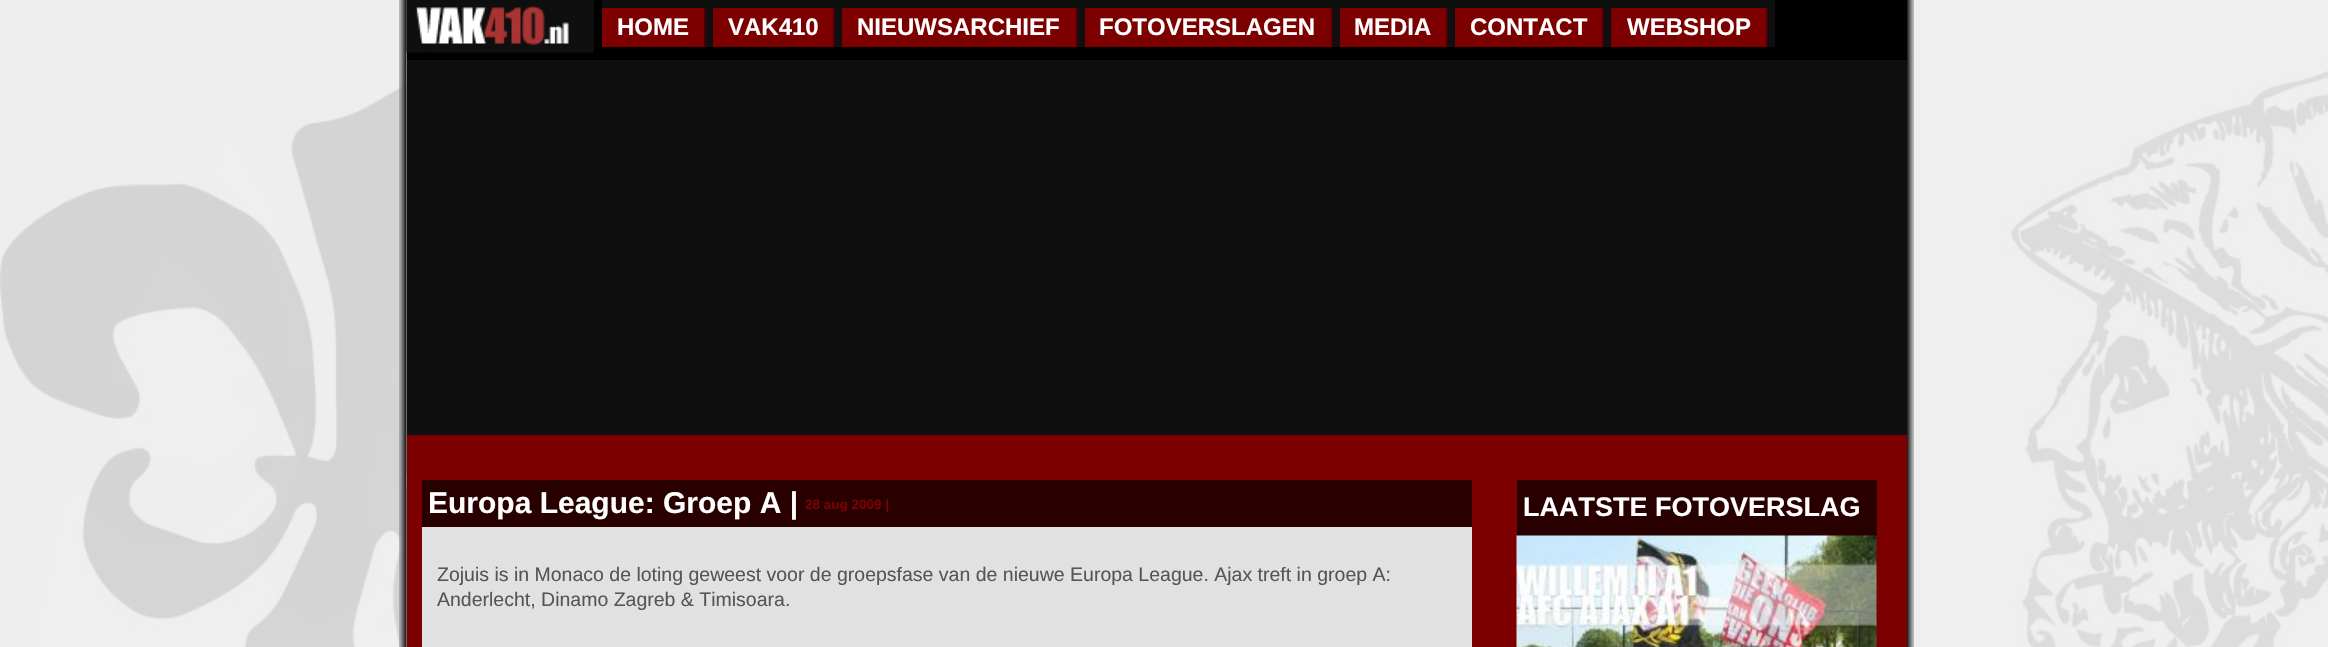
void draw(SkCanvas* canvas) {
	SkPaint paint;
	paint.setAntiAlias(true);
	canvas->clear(0xffffffff);
	canvas->drawImageRect(SkImages::DeferredFromEncodedData(SkData::MakeFromFileName("img1.png")), SkRect::MakeXYWH(0, 0, 2328, 647), SkSamplingOptions());
	canvas->drawImageRect(SkImages::DeferredFromEncodedData(SkData::MakeFromFileName("img2.png")), SkRect::MakeXYWH(399, 0, 1515, 647), SkSamplingOptions());
	paint.setColor(0xff000000);
	canvas->drawRect(SkRect::MakeXYWH(407, 0, 1500, 60), paint);
	canvas->drawImageRect(SkImages::DeferredFromEncodedData(SkData::MakeFromFileName("img3.png")), SkRect::MakeXYWH(406, 0, 188, 53), SkSamplingOptions());
	paint.setColor(0xff0f0f0f);
	canvas->drawRect(SkRect::MakeXYWH(602, 0, 1173, 47), paint);
	paint.setColor(0xff7c0000);
	canvas->drawRect(SkRect::MakeXYWH(602, 8, 102, 39), paint);
	paint.setColor(0xff450009);
	canvas->drawRect(SkRect::MakeXYWH(704, 8, 2, 39), paint);
	SkFont f1(fontMgr->matchFamilyStyle("Liberation Sans", SkFontStyle::Bold()), 24);
	f1.setSubpixel(true);
	paint.setColor(0xffffffff);
	canvas->drawString("HOME", 617, 35, f1, paint);
	paint.setColor(0xff7c0000);
	canvas->drawRect(SkRect::MakeXYWH(713, 8, 120, 39), paint);
	paint.setColor(0xff450009);
	canvas->drawRect(SkRect::MakeXYWH(833, 8, 2, 39), paint);
	paint.setColor(0xffffffff);
	canvas->drawString("VAK410", 728, 35, f1, paint);
	paint.setColor(0xff7c0000);
	canvas->drawRect(SkRect::MakeXYWH(842, 8, 234, 39), paint);
	paint.setColor(0xff450009);
	canvas->drawRect(SkRect::MakeXYWH(1076, 8, 2, 39), paint);
	paint.setColor(0xffffffff);
	canvas->drawString("NIEUWSARCHIEF", 857, 35, f1, paint);
	paint.setColor(0xff7c0000);
	canvas->drawRect(SkRect::MakeXYWH(1085, 8, 246, 39), paint);
	paint.setColor(0xff450009);
	canvas->drawRect(SkRect::MakeXYWH(1331, 8, 2, 39), paint);
	paint.setColor(0xffffffff);
	canvas->drawString("FOTOVERSLAGEN", 1099, 35, f1, paint);
	paint.setColor(0xff7c0000);
	canvas->drawRect(SkRect::MakeXYWH(1340, 8, 106, 39), paint);
	paint.setColor(0xff450009);
	canvas->drawRect(SkRect::MakeXYWH(1446, 8, 2, 39), paint);
	paint.setColor(0xffffffff);
	canvas->drawString("MEDIA", 1354, 35, f1, paint);
	paint.setColor(0xff7c0000);
	canvas->drawRect(SkRect::MakeXYWH(1455, 8, 147, 39), paint);
	paint.setColor(0xff450009);
	canvas->drawRect(SkRect::MakeXYWH(1602, 8, 2, 39), paint);
	paint.setColor(0xffffffff);
	canvas->drawString("CONTACT", 1470, 35, f1, paint);
	paint.setColor(0xff7c0000);
	canvas->drawRect(SkRect::MakeXYWH(1611, 8, 155, 39), paint);
	paint.setColor(0xff450009);
	canvas->drawRect(SkRect::MakeXYWH(1766, 8, 2, 39), paint);
	paint.setColor(0xffffffff);
	canvas->drawString("WEBSHOP", 1627, 35, f1, paint);
	paint.setColor(0xff0f0f0f);
	canvas->drawRect(SkRect::MakeXYWH(407, 60, 1499, 375), paint);
	paint.setColor(0xff7c0000);
	canvas->drawRect(SkRect::MakeXYWH(407, 435, 1500, 212), paint);
	paint.setColor(0xff280000);
	canvas->drawRect(SkRect::MakeXYWH(422, 480, 1050, 47), paint);
	SkFont f2(fontMgr->matchFamilyStyle("Liberation Sans", SkFontStyle::Bold()), 30);
	f2.setSubpixel(true);
	paint.setColor(0xffffffff);
	canvas->drawString("Europa League: Groep A |", 428, 513, f2, paint);
	SkFont f3(fontMgr->matchFamilyStyle("Liberation Sans", SkFontStyle::Bold()), 13.5);
	f3.setSubpixel(true);
	paint.setColor(0xff7c0000);
	canvas->drawString("28 aug 2009 |", 805, 509, f3, paint);
	paint.setColor(0xffe1e1e1);
	canvas->drawRect(SkRect::MakeXYWH(422, 527, 1050, 120), paint);
	SkFont f4(fontMgr->matchFamilyStyle("Liberation Sans", SkFontStyle::Normal()), 19.5);
	f4.setSubpixel(true);
	paint.setColor(0xff555555);
	canvas->drawString("Zojuis is in Monaco de loting geweest voor de groepsfase van de nieuwe Europa League. Ajax treft in groep A:", 437, 581, f4, paint);
	canvas->drawString("Anderlecht, Dinamo Zagreb & Timisoara.", 437, 606, f4, paint);
	paint.setColor(0xff280000);
	canvas->drawRect(SkRect::MakeXYWH(1517, 480, 360, 56), paint);
	SkFont f5(fontMgr->matchFamilyStyle("Liberation Sans", SkFontStyle::Bold()), 27);
	f5.setSubpixel(true);
	paint.setColor(0xffffffff);
	canvas->drawString("LAATSTE FOTOVERSLAG", 1523, 516, f5, paint);
	canvas->drawImageRect(SkImages::DeferredFromEncodedData(SkData::MakeFromFileName("img4.png")), SkRect::MakeXYWH(1516, 535, 361, 112), SkSamplingOptions());
}
